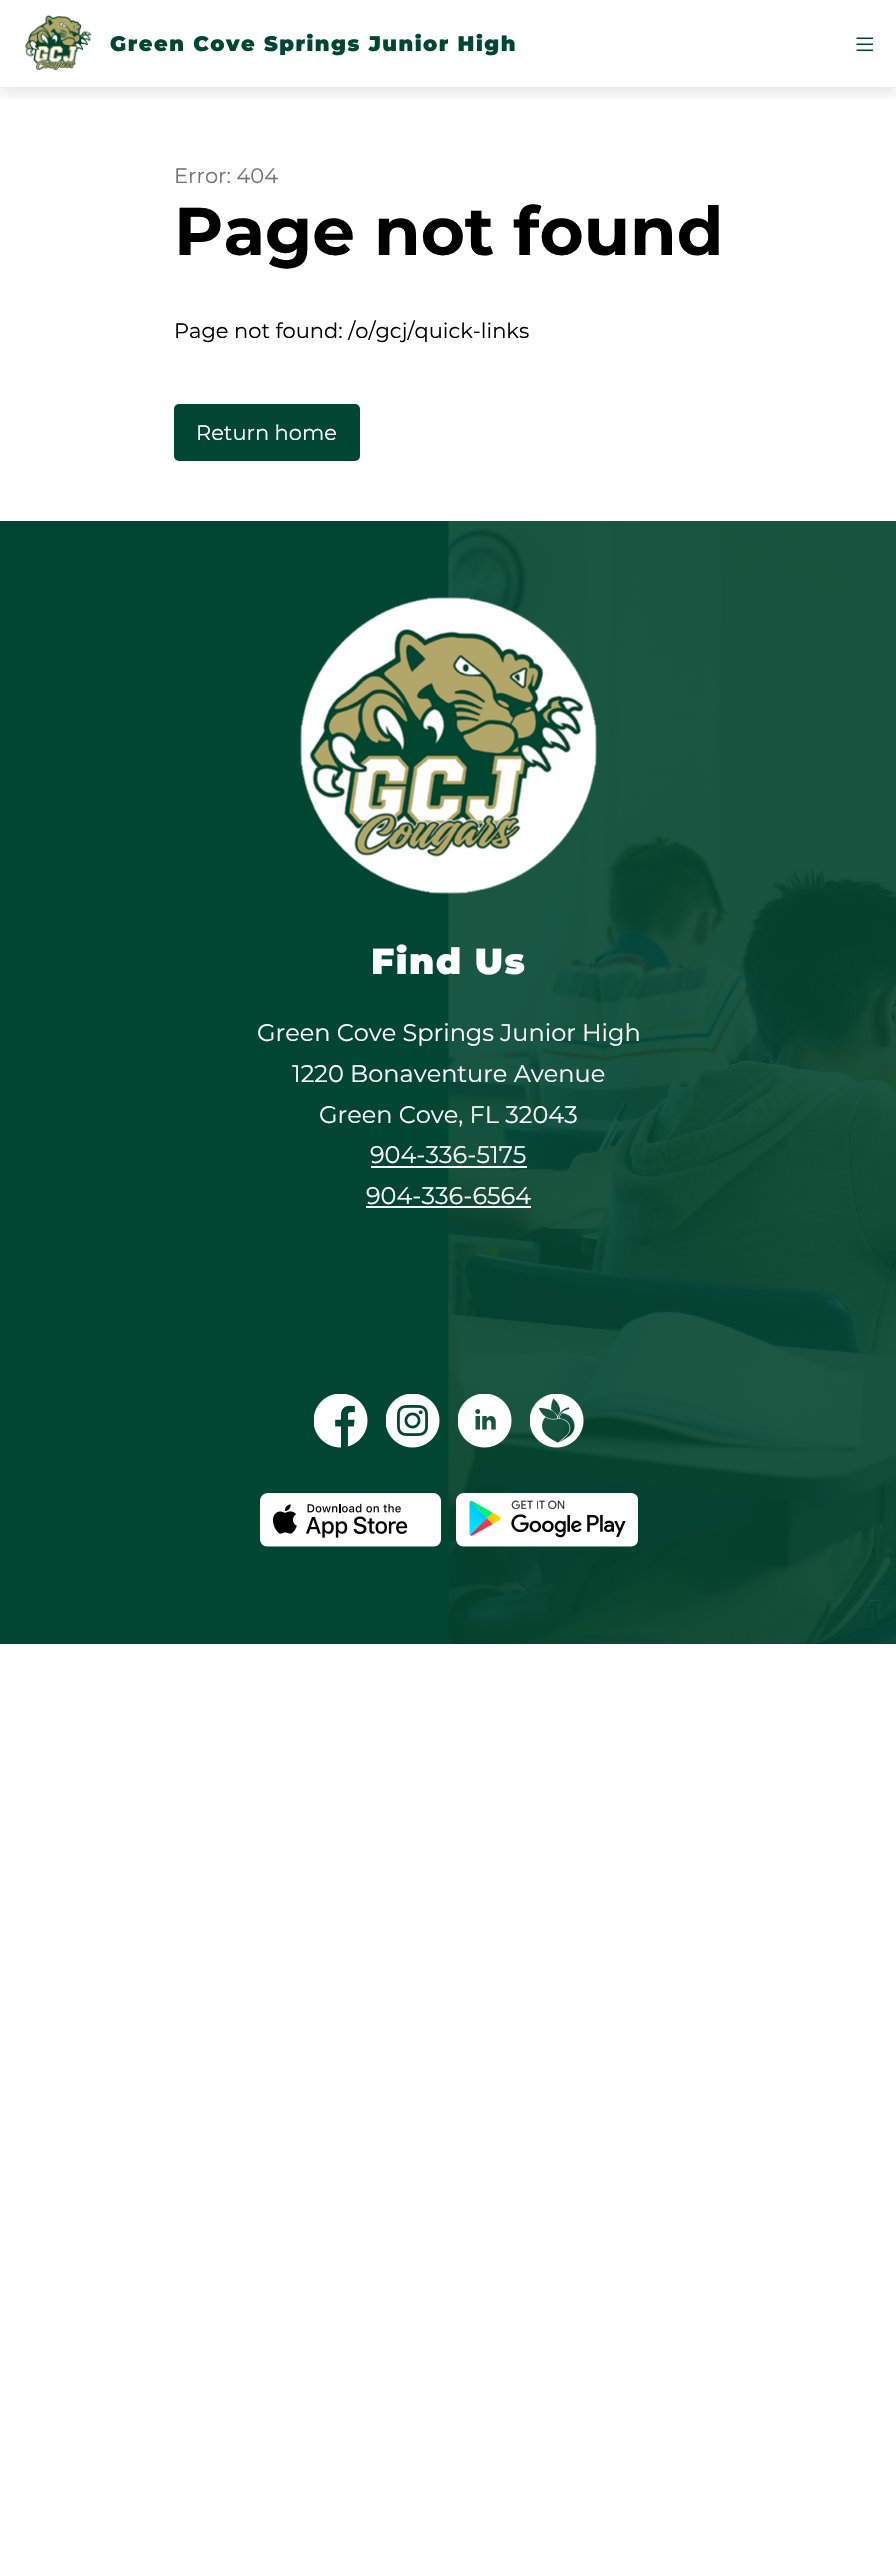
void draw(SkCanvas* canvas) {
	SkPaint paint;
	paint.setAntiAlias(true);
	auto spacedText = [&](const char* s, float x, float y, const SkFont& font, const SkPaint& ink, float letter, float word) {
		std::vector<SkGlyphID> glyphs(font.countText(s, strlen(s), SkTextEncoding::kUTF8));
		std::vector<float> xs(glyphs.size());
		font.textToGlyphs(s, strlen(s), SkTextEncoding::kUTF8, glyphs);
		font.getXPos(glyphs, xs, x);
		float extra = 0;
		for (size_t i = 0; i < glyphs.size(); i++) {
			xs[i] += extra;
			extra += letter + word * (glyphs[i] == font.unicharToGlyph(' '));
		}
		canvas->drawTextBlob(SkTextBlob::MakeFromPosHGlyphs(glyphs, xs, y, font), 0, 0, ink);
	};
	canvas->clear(0xffffffff);
	canvas->save();
	canvas->clipRect(SkRect::MakeXYWH(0, 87, 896, 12));
	paint.setColor(0x1a000000);
	paint.setMaskFilter(SkMaskFilter::MakeBlur(kNormal_SkBlurStyle, 7.5));
	canvas->drawRect(SkRect::MakeXYWH(0, 6, 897, 87), paint);
	paint.setMaskFilter(nullptr);
	canvas->restore();
	canvas->drawImageRect(SkImages::DeferredFromEncodedData(SkData::MakeFromFileName("img1.png")), SkRect::MakeXYWH(24, 15, 68, 56), SkSamplingOptions());
	SkFont f1(fontMgr->matchFamilyStyle("Montserrat", SkFontStyle(900, SkFontStyle::kNormal_Width, SkFontStyle::kUpright_Slant)), 21);
	f1.setSubpixel(true);
	paint.setColor(0xff014630);
	spacedText("Green Cove Springs Junior High", 110, 51, f1, paint, 1.5, 0);
	canvas->drawImageRect(SkImages::DeferredFromEncodedData(SkData::MakeFromFileName("img2.png")), SkRect::MakeXYWH(856, 37, 17, 14), SkSamplingOptions());
	SkFont f2(fontMgr->matchFamilyStyle("Montserrat", SkFontStyle::Normal()), 21);
	f2.setSubpixel(true);
	paint.setColor(0xff747474);
	canvas->drawString("Error: 404", 174, 183, f2, paint);
	SkFont f3(fontMgr->matchFamilyStyle("Montserrat", SkFontStyle::Bold()), 67.5);
	f3.setSubpixel(true);
	paint.setColor(0xff000000);
	canvas->drawString("Page not found", 174, 255, f3, paint);
	canvas->drawString("Page not found: /o/gcj/quick-links", 174, 338, f2, paint);
	paint.setColor(0xff014630);
	canvas->drawRoundRect(SkRect::MakeXYWH(174, 404, 186, 57), 5, 5, paint);
	paint.setColor(0xffffffff);
	canvas->drawString("Return home", 196, 440, f2, paint);
	paint.setColor(0xff014630);
	canvas->drawRect(SkRect::MakeXYWH(0, 521, 896, 1123), paint);
	canvas->drawImageRect(SkImages::DeferredFromEncodedData(SkData::MakeFromFileName("img3.png")), SkRect::MakeXYWH(448, 521, 448, 1123), SkSamplingOptions());
	canvas->drawImageRect(SkImages::DeferredFromEncodedData(SkData::MakeFromFileName("img4.png")), SkRect::MakeXYWH(300, 597, 297, 297), SkSamplingOptions());
	SkFont f4(fontMgr->matchFamilyStyle("Montserrat", SkFontStyle(900, SkFontStyle::kNormal_Width, SkFontStyle::kUpright_Slant)), 36);
	f4.setSubpixel(true);
	paint.setColor(0xffffffff);
	spacedText("Find Us", 371, 974, f4, paint, 1.5, 0);
	SkFont f5(fontMgr->matchFamilyStyle("Montserrat", SkFontStyle::Normal()), 24);
	f5.setSubpixel(true);
	canvas->drawString("Green Cove Springs Junior High", 257, 1041, f5, paint);
	canvas->drawString("1220 Bonaventure Avenue", 292, 1082, f5, paint);
	canvas->drawString("Green Cove, FL 32043", 319, 1123, f5, paint);
	canvas->drawString("904-336-5175", 370, 1163, f5, paint);
	canvas->drawRect(SkRect::MakeXYWH(371, 1166, 156, 2), paint);
	canvas->drawString("904-336-6564", 366, 1204, f5, paint);
	canvas->drawRect(SkRect::MakeXYWH(366, 1206, 165, 2), paint);
	canvas->drawImageRect(SkImages::DeferredFromEncodedData(SkData::MakeFromFileName("img5.png")), SkRect::MakeXYWH(314, 1394, 54, 54), SkSamplingOptions());
	canvas->drawImageRect(SkImages::DeferredFromEncodedData(SkData::MakeFromFileName("img6.png")), SkRect::MakeXYWH(386, 1394, 54, 54), SkSamplingOptions());
	canvas->drawImageRect(SkImages::DeferredFromEncodedData(SkData::MakeFromFileName("img7.png")), SkRect::MakeXYWH(458, 1394, 54, 54), SkSamplingOptions());
	canvas->drawImageRect(SkImages::DeferredFromEncodedData(SkData::MakeFromFileName("img8.png")), SkRect::MakeXYWH(530, 1394, 54, 54), SkSamplingOptions());
	canvas->drawImageRect(SkImages::DeferredFromEncodedData(SkData::MakeFromFileName("img9.png")), SkRect::MakeXYWH(260, 1493, 181, 54), SkSamplingOptions());
	canvas->drawImageRect(SkImages::DeferredFromEncodedData(SkData::MakeFromFileName("img10.png")), SkRect::MakeXYWH(456, 1493, 182, 54), SkSamplingOptions());
}
